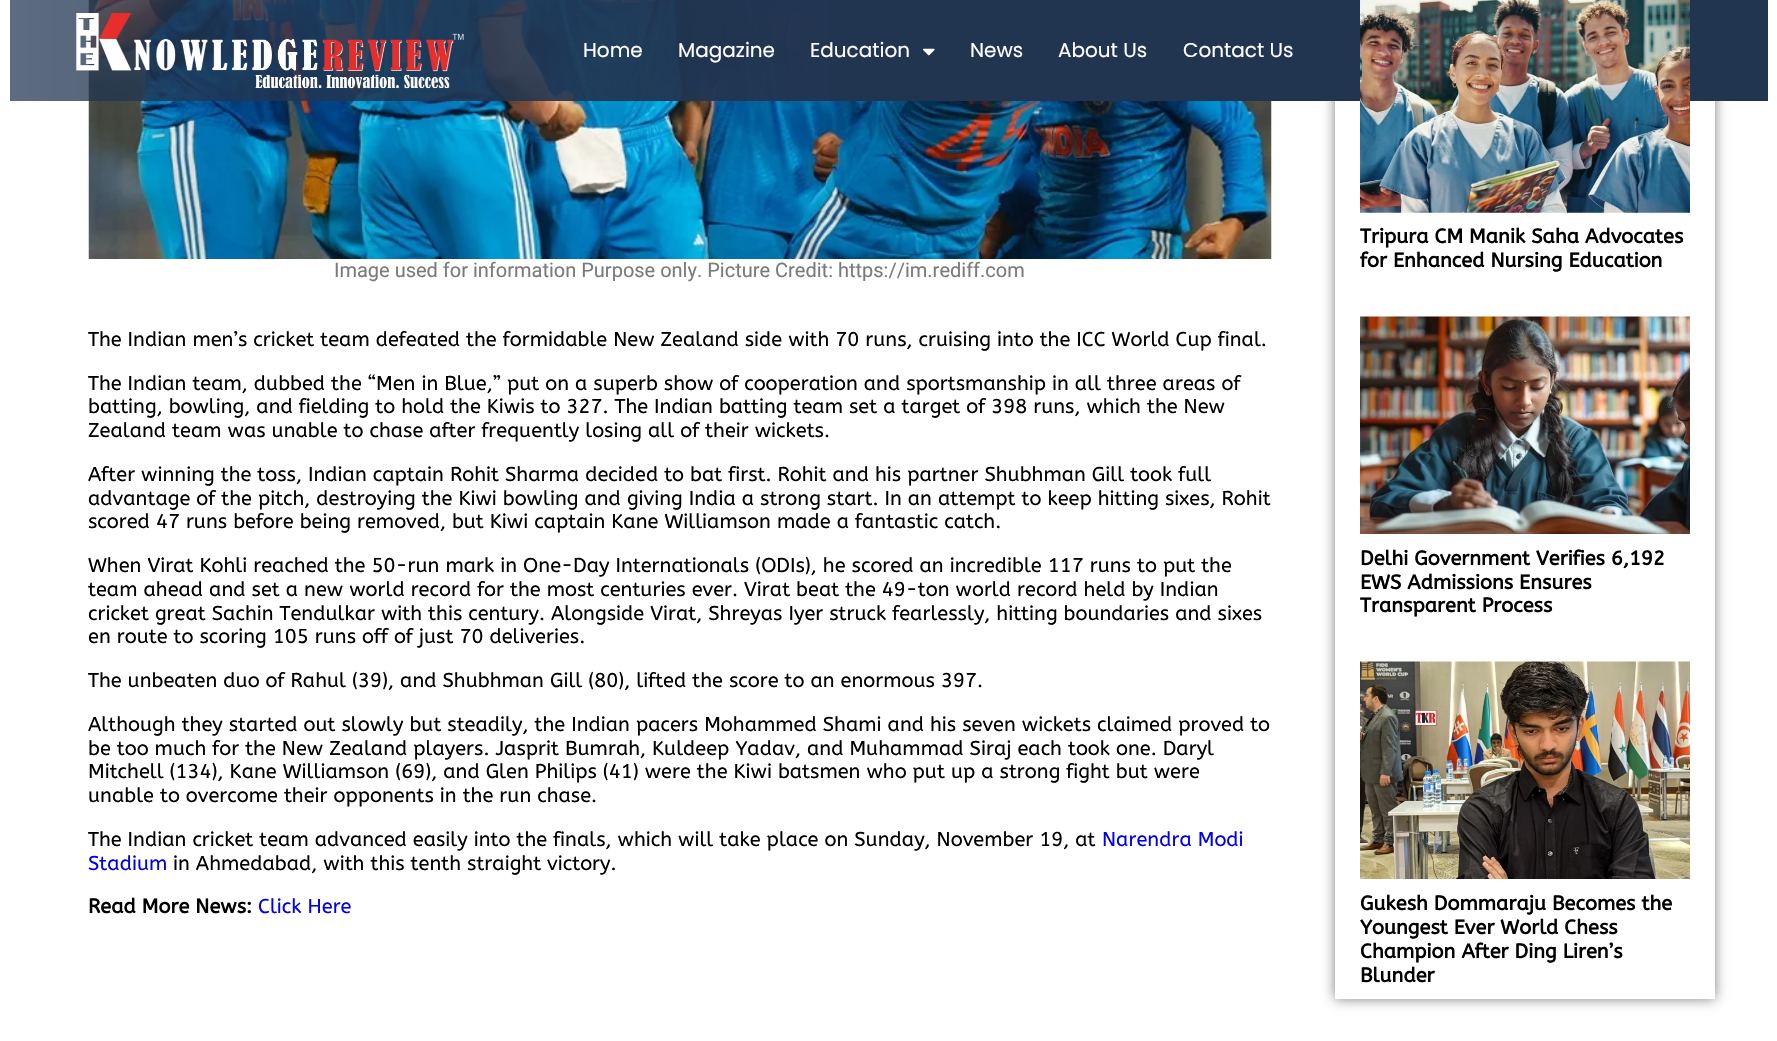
void draw(SkCanvas* canvas) {
	SkPaint paint;
	paint.setAntiAlias(true);
	auto svgPath = [&](const char* data, bool evenOdd = false) {
		SkPath result = *SkParsePath::FromSVGString(data);
		if (evenOdd) result.setFillType(SkPathFillType::kEvenOdd);
		return result;
	};
	canvas->clear(0xffffffff);
	canvas->drawImageRect(SkImages::DeferredFromEncodedData(SkData::MakeFromFileName("img3.png")), SkRect::MakeXYWH(88, 0, 1184, 259), SkSamplingOptions());
	canvas->save();
	canvas->clipPath(svgPath("M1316 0H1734V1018H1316ZM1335-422H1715V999H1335Z", true), true);
	paint.setColor(0x80000000);
	paint.setMaskFilter(SkMaskFilter::MakeBlur(kNormal_SkBlurStyle, 6));
	canvas->drawRect(SkRect::MakeXYWH(1335, -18, 380, 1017), paint);
	paint.setMaskFilter(nullptr);
	canvas->restore();
	{
		const SkColor colors[] = {0xff213551, 0xba213551};
		const float stops[] = {0.53, 1};
		const SkPoint ends[] = {{1768, 51}, {10, 51}};
		paint.setShader(SkGradientShader::MakeLinear(ends, colors, stops, 2, SkTileMode::kClamp));
		paint.setAlpha(255);
	}
	canvas->drawRect(SkRect::MakeXYWH(10, 0, 1758, 101), paint);
	canvas->drawImageRect(SkImages::DeferredFromEncodedData(SkData::MakeFromFileName("img1.png")), SkRect::MakeXYWH(76, 13, 388, 76), SkSamplingOptions());
	SkFont f1(fontMgr->matchFamilyStyle("Poppins", SkFontStyle::Normal()), 20);
	f1.setSubpixel(true);
	paint.setShader(nullptr);
	paint.setColor(0xffffffff);
	canvas->drawString("Home", 583, 57, f1, paint);
	canvas->drawString("Magazine", 678, 57, f1, paint);
	canvas->drawString("Education", 810, 57, f1, paint);
	canvas->drawImageRect(SkImages::DeferredFromEncodedData(SkData::MakeFromFileName("img2.png")), SkRect::MakeXYWH(923, 48, 12, 8), SkSamplingOptions());
	canvas->drawString("News", 970, 57, f1, paint);
	canvas->drawString("About Us", 1058, 57, f1, paint);
	canvas->drawString("Contact Us", 1183, 57, f1, paint);
	SkFont f2(fontMgr->matchFamilyStyle("Roboto", SkFontStyle::Normal()), 20);
	f2.setSubpixel(true);
	paint.setColor(0xff7a7a7a);
	canvas->drawString("Image used for information Purpose only. Picture Credit: https://im.rediff.com", 334, 277, f2, paint);
	SkFont f3(fontMgr->matchFamilyStyle("ABeeZee", SkFontStyle::Normal()), 20);
	f3.setSubpixel(true);
	paint.setColor(0xff000000);
	canvas->drawString("The Indian men’s cricket team defeated the formidable New Zealand side with 70 runs, cruising into the ICC World Cup final.", 88, 346, f3, paint);
	canvas->drawString("The Indian team, dubbed the “Men in Blue,” put on a superb show of cooperation and sportsmanship in all three areas of", 88, 390, f3, paint);
	canvas->drawString("batting, bowling, and fielding to hold the Kiwis to 327. The Indian batting team set a target of 398 runs, which the New", 88, 413, f3, paint);
	canvas->drawString("Zealand team was unable to chase after frequently losing all of their wickets.", 88, 437, f3, paint);
	canvas->drawString("After winning the toss, Indian captain Rohit Sharma decided to bat first. Rohit and his partner Shubhman Gill took full", 88, 481, f3, paint);
	canvas->drawString("advantage of the pitch, destroying the Kiwi bowling and giving India a strong start. In an attempt to keep hitting sixes, Rohit", 88, 505, f3, paint);
	canvas->drawString("scored 47 runs before being removed, but Kiwi captain Kane Williamson made a fantastic catch.", 88, 528, f3, paint);
	canvas->drawString("When Virat Kohli reached the 50-run mark in One-Day Internationals (ODIs), he scored an incredible 117 runs to put the", 88, 572, f3, paint);
	canvas->drawString("team ahead and set a new world record for the most centuries ever. Virat beat the 49-ton world record held by Indian", 88, 596, f3, paint);
	canvas->drawString("cricket great Sachin Tendulkar with this century. Alongside Virat, Shreyas Iyer struck fearlessly, hitting boundaries and sixes", 88, 620, f3, paint);
	canvas->drawString("en route to scoring 105 runs off of just 70 deliveries.", 88, 643, f3, paint);
	canvas->drawString("The unbeaten duo of Rahul (39), and Shubhman Gill (80), lifted the score to an enormous 397.", 88, 687, f3, paint);
	canvas->drawString("Although they started out slowly but steadily, the Indian pacers Mohammed Shami and his seven wickets claimed proved to", 88, 731, f3, paint);
	canvas->drawString("be too much for the New Zealand players. Jasprit Bumrah, Kuldeep Yadav, and Muhammad Siraj each took one. Daryl", 88, 755, f3, paint);
	canvas->drawString("Mitchell (134), Kane Williamson (69), and Glen Philips (41) were the Kiwi batsmen who put up a strong fight but were", 88, 778, f3, paint);
	canvas->drawString("unable to overcome their opponents in the run chase.", 88, 802, f3, paint);
	canvas->drawString("The Indian cricket team advanced easily into the finals, which will take place on Sunday, November 19, at", 88, 846, f3, paint);
	paint.setColor(0xff0000ee);
	canvas->drawString("Narendra Modi", 1102, 846, f3, paint);
	canvas->drawString("Stadium", 88, 870, f3, paint);
	paint.setColor(0xff000000);
	canvas->drawString("in Ahmedabad, with this tenth straight victory.", 173, 870, f3, paint);
	SkFont f4(fontMgr->matchFamilyStyle("ABeeZee", SkFontStyle::Bold()), 20);
	f4.setSubpixel(true);
	canvas->drawString("Read More News:", 88, 913, f4, paint);
	paint.setColor(0xff0000ee);
	canvas->drawString("Click Here", 258, 913, f3, paint);
	canvas->drawImageRect(SkImages::DeferredFromEncodedData(SkData::MakeFromFileName("img4.png")), SkRect::MakeXYWH(1360, 0, 330, 213), SkSamplingOptions());
	paint.setColor(0xff000000);
	canvas->drawString("Tripura CM Manik Saha Advocates", 1360, 243, f4, paint);
	canvas->drawString("for Enhanced Nursing Education", 1360, 267, f4, paint);
	canvas->drawImageRect(SkImages::DeferredFromEncodedData(SkData::MakeFromFileName("img5.png")), SkRect::MakeXYWH(1360, 316, 330, 218), SkSamplingOptions());
	canvas->drawString("Delhi Government Verifies 6,192", 1360, 565, f4, paint);
	canvas->drawString("EWS Admissions Ensures", 1360, 589, f4, paint);
	canvas->drawString("Transparent Process", 1360, 612, f4, paint);
	canvas->drawImageRect(SkImages::DeferredFromEncodedData(SkData::MakeFromFileName("img6.png")), SkRect::MakeXYWH(1360, 661, 330, 218), SkSamplingOptions());
	canvas->drawString("Gukesh Dommaraju Becomes the", 1360, 910, f4, paint);
	canvas->drawString("Youngest Ever World Chess", 1360, 934, f4, paint);
	canvas->drawString("Champion After Ding Liren’s", 1360, 958, f4, paint);
	canvas->drawString("Blunder", 1360, 982, f4, paint);
}
